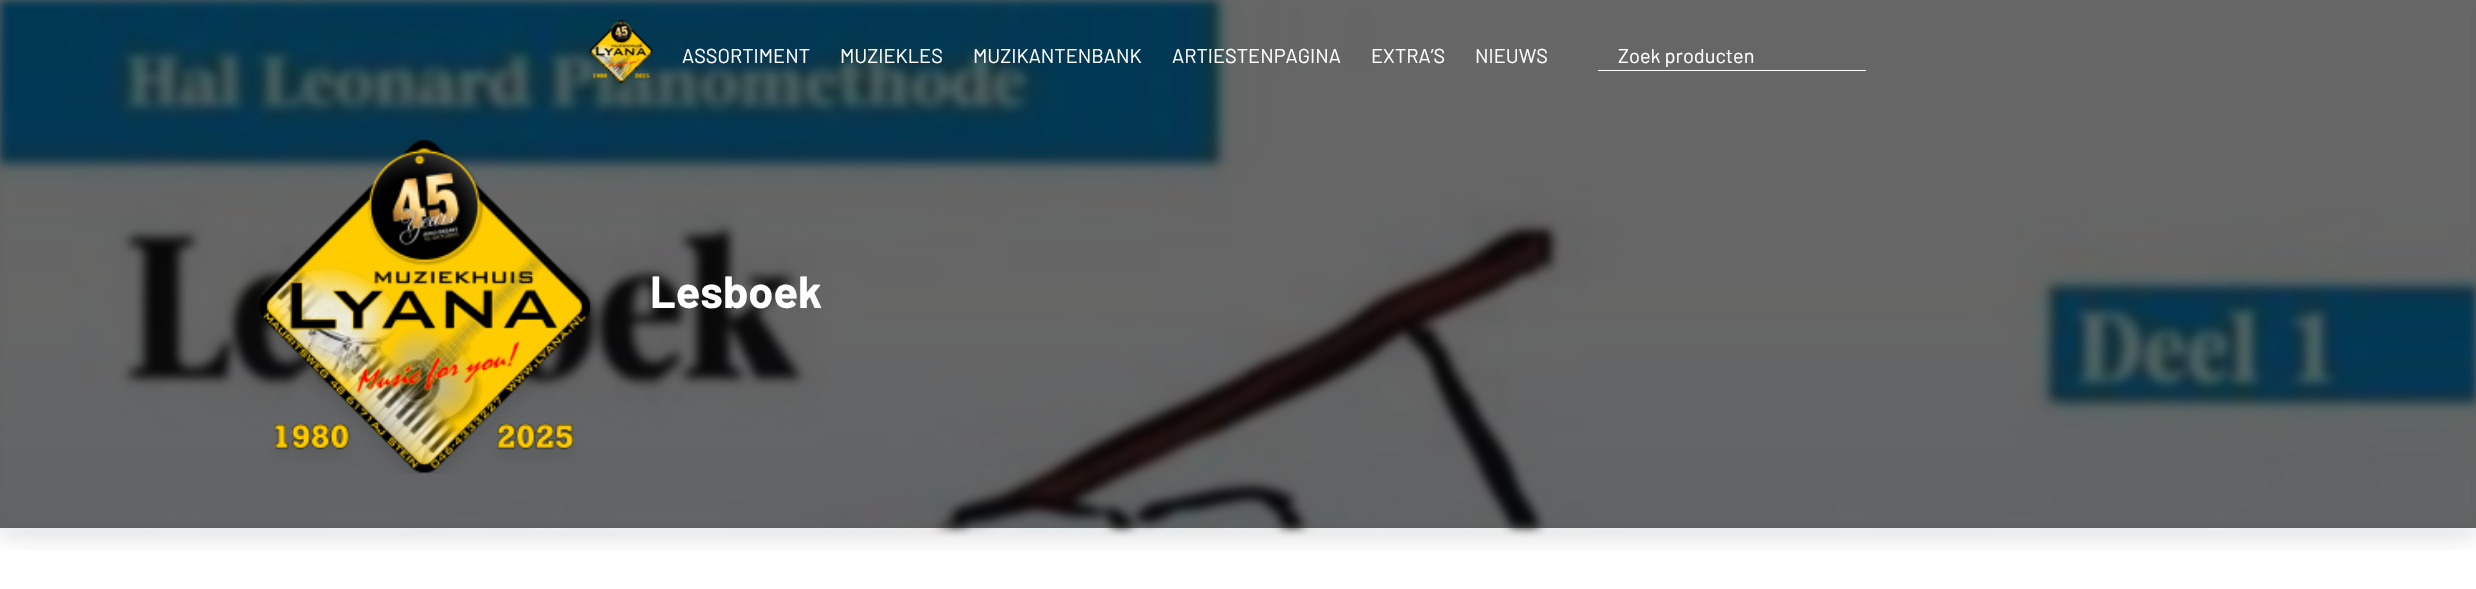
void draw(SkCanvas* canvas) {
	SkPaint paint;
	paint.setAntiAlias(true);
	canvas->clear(0xffffffff);
	paint.setColor(0xff666666);
	canvas->drawRect(SkRect::MakeXYWH(0, 0, 2476, 528), paint);
	canvas->drawImageRect(SkImages::DeferredFromEncodedData(SkData::MakeFromFileName("img2.png")), SkRect::MakeXYWH(0, 0, 2476, 550), SkSamplingOptions());
	canvas->drawImageRect(SkImages::DeferredFromEncodedData(SkData::MakeFromFileName("img1.png")), SkRect::MakeXYWH(589, 19, 64, 65), SkSamplingOptions());
	SkFont f1(fontMgr->matchFamilyStyle("Barlow", SkFontStyle::Normal()), 20);
	f1.setSubpixel(true);
	paint.setColor(0xffffffff);
	canvas->drawString("ASSORTIMENT", 682, 63, f1, paint);
	canvas->drawString("MUZIEKLES", 840, 63, f1, paint);
	canvas->drawString("MUZIKANTENBANK", 973, 63, f1, paint);
	canvas->drawString("ARTIESTENPAGINA", 1172, 63, f1, paint);
	canvas->drawString("EXTRA’S", 1371, 63, f1, paint);
	canvas->drawString("NIEUWS", 1475, 63, f1, paint);
	canvas->drawRect(SkRect::MakeXYWH(1598, 70, 268, 1), paint);
	canvas->drawString("Zoek producten", 1618, 63, f1, paint);
	canvas->drawImageRect(SkImages::DeferredFromEncodedData(SkData::MakeFromFileName("img3.png")), SkRect::MakeXYWH(259, 140, 331, 334), SkSamplingOptions());
	SkFont f2(fontMgr->matchFamilyStyle("Barlow", SkFontStyle::Bold()), 45);
	f2.setSubpixel(true);
	canvas->drawString("Lesboek", 650, 308, f2, paint);
}
